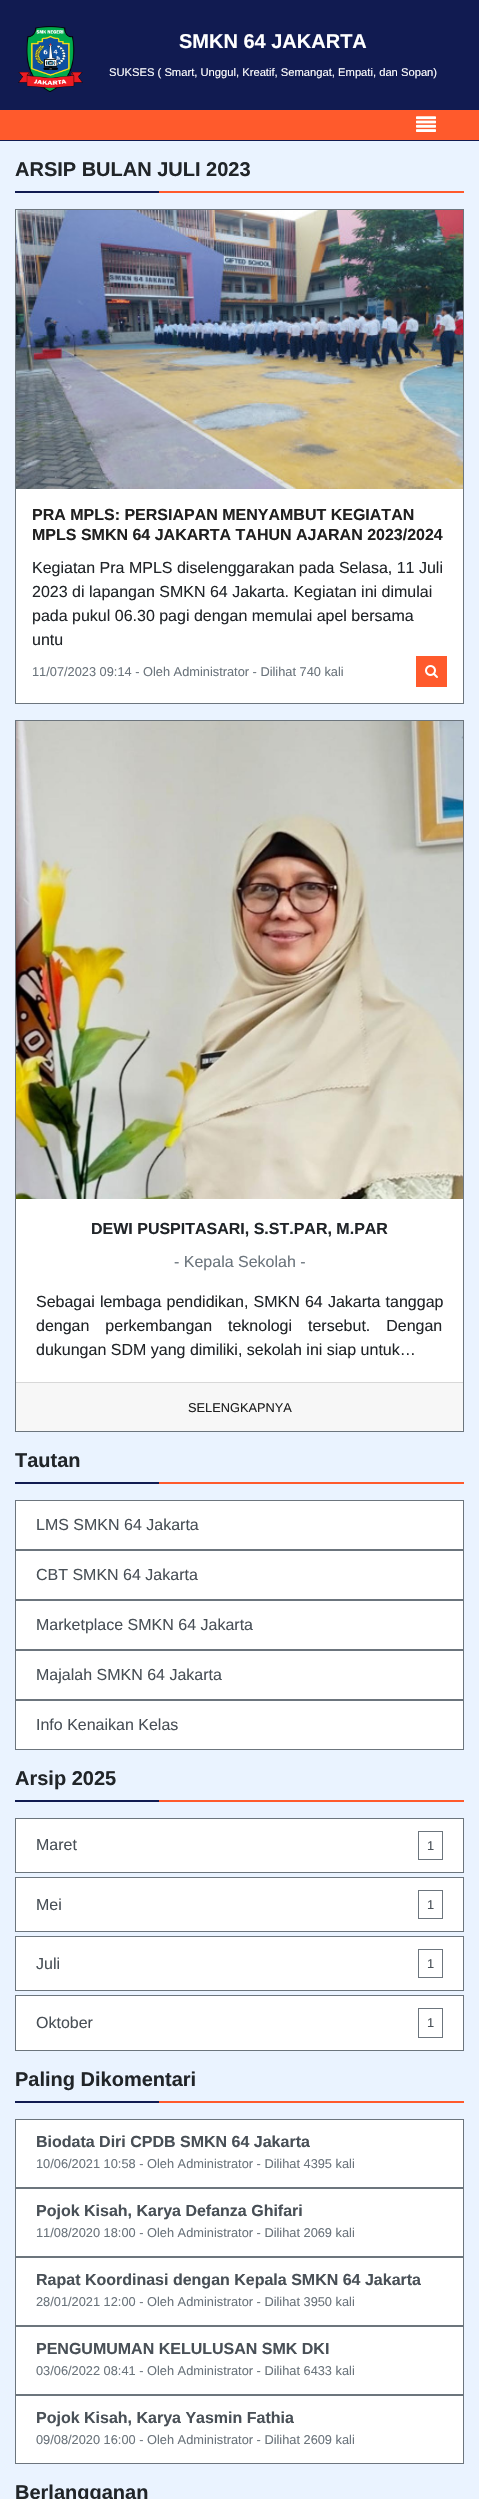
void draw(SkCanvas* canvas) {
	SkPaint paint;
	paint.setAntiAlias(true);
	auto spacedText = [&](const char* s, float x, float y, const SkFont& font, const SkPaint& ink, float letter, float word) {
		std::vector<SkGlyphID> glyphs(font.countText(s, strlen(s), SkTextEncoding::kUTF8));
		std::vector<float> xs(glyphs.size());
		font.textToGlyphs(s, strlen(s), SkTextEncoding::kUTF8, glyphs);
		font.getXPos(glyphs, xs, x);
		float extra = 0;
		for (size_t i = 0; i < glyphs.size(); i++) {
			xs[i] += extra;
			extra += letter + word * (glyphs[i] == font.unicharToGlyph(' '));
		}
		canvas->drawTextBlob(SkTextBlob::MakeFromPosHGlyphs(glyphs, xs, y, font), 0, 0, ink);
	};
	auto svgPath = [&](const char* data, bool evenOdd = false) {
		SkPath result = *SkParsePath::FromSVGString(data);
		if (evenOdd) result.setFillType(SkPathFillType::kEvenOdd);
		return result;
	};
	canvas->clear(0xffeaf3ff);
	paint.setColor(0xff111b51);
	canvas->drawRect(SkRect::MakeXYWH(0, 0, 479, 110), paint);
	canvas->drawImageRect(SkImages::DeferredFromEncodedData(SkData::MakeFromFileName("img1.png")), SkRect::MakeXYWH(18, 26, 65, 66), SkSamplingOptions());
	SkFont f1(fontMgr->matchFamilyStyle("Liberation Sans", SkFontStyle::Bold()), 20);
	f1.setSubpixel(true);
	paint.setColor(0xffffffff);
	canvas->drawString("SMKN 64 JAKARTA", 179, 48, f1, paint);
	SkFont f2(fontMgr->matchFamilyStyle("Liberation Sans", SkFontStyle::Normal()), 11.2);
	f2.setSubpixel(true);
	canvas->drawString("SUKSES ( Smart, Unggul, Kreatif, Semangat, Empati, dan Sopan)", 109, 76, f2, paint);
	paint.setColor(0xffff5a2c);
	canvas->drawRect(SkRect::MakeXYWH(0, 110, 479, 30), paint);
	paint.setColor(0xff111b51);
	canvas->drawRect(SkRect::MakeXYWH(0, 140, 479, 1), paint);
	canvas->drawImageRect(SkImages::DeferredFromEncodedData(SkData::MakeFromFileName("img2.png")), SkRect::MakeXYWH(416, 116, 20, 16), SkSamplingOptions());
	paint.setColor(0xffff5a2c);
	canvas->drawRect(SkRect::MakeXYWH(159, 191, 305, 2), paint);
	paint.setColor(0xff212529);
	canvas->drawString("ARSIP BULAN JULI 2023", 15, 176, f1, paint);
	paint.setColor(0xff111b51);
	canvas->drawRect(SkRect::MakeXYWH(15, 191, 144, 2), paint);
	paint.setColor(0xffffffff);
	canvas->drawRect(SkRect::MakeXYWH(16, 489, 447, 214), paint);
	paint.setStroke(true);
	paint.setStrokeWidth(1);
	paint.setColor(0xff6c757d);
	canvas->drawRect(SkRect::MakeXYWH(15.5, 209.5, 448, 494), paint);
	canvas->drawImageRect(SkImages::DeferredFromEncodedData(SkData::MakeFromFileName("img3.png")), SkRect::MakeXYWH(16, 210, 447, 279), SkSamplingOptions());
	SkFont f3(fontMgr->matchFamilyStyle("Liberation Sans", SkFontStyle::Bold()), 16);
	f3.setSubpixel(true);
	paint.setStroke(false);
	paint.setColor(0xff202020);
	canvas->drawString("PRA MPLS: PERSIAPAN MENYAMBUT KEGIATAN", 32, 520, f3, paint);
	canvas->drawString("MPLS SMKN 64 JAKARTA TAHUN AJARAN 2023/2024", 32, 540, f3, paint);
	SkFont f4(fontMgr->matchFamilyStyle("Liberation Sans", SkFontStyle::Normal()), 16);
	f4.setSubpixel(true);
	paint.setColor(0xff212529);
	canvas->drawString("Kegiatan Pra MPLS diselenggarakan pada Selasa, 11 Juli", 32, 573, f4, paint);
	canvas->drawString("2023 di lapangan SMKN 64 Jakarta. Kegiatan ini dimulai", 32, 597, f4, paint);
	canvas->drawString("pada pukul 06.30 pagi dengan memulai apel bersama", 32, 621, f4, paint);
	canvas->drawString("untu", 32, 645, f4, paint);
	SkFont f5(fontMgr->matchFamilyStyle("Liberation Sans", SkFontStyle::Normal()), 12.8);
	f5.setSubpixel(true);
	paint.setColor(0xff6c757d);
	canvas->drawString("11/07/2023 09:14 - Oleh Administrator - Dilihat 740 kali", 32, 676, f5, paint);
	paint.setColor(0xffff5a2c);
	canvas->drawRect(SkRect::MakeXYWH(416, 656, 31, 31), paint);
	canvas->drawImageRect(SkImages::DeferredFromEncodedData(SkData::MakeFromFileName("img4.png")), SkRect::MakeXYWH(425, 665, 13, 13), SkSamplingOptions());
	paint.setColor(0xffffffff);
	canvas->drawRect(SkRect::MakeXYWH(16, 1199, 447, 232), paint);
	paint.setStroke(true);
	paint.setColor(0xff6c757d);
	canvas->drawRect(SkRect::MakeXYWH(15.5, 720.5, 448, 711), paint);
	canvas->drawImageRect(SkImages::DeferredFromEncodedData(SkData::MakeFromFileName("img5.png")), SkRect::MakeXYWH(16, 721, 447, 478), SkSamplingOptions());
	paint.setStroke(false);
	paint.setColor(0xff212529);
	canvas->drawString("DEWI PUSPITASARI, S.ST.PAR, M.PAR", 91, 1234, f3, paint);
	paint.setColor(0xff6c757d);
	canvas->drawString("- Kepala Sekolah -", 174, 1267, f4, paint);
	paint.setColor(0xff212529);
	spacedText("Sebagai lembaga pendidikan, SMKN 64 Jakarta tanggap", 36, 1307, f4, paint, 0, 0.75);
	spacedText("dengan perkembangan teknologi tersebut. Dengan", 36, 1331, f4, paint, 0, 11.5);
	canvas->drawString("dukungan SDM yang dimiliki, sekolah ini siap untuk…", 36, 1355, f4, paint);
	paint.setColor(0xfff7f7f7);
	canvas->drawPath(svgPath("M16 1382H463V1428C463 1429.5 461.5 1431 460 1431H19C17.5 1431 16 1429.5 16 1428Z"), paint);
	paint.setColor(0xffd8d8d8);
	canvas->drawRect(SkRect::MakeXYWH(16, 1382, 447, 1), paint);
	paint.setColor(0xff202020);
	canvas->drawString("SELENGKAPNYA", 188, 1412, f5, paint);
	paint.setColor(0xffff5a2c);
	canvas->drawRect(SkRect::MakeXYWH(159, 1482, 305, 2), paint);
	paint.setColor(0xff212529);
	canvas->drawString("Tautan", 15, 1467, f1, paint);
	paint.setColor(0xff111b51);
	canvas->drawRect(SkRect::MakeXYWH(15, 1482, 144, 2), paint);
	paint.setColor(0xffffffff);
	canvas->drawRect(SkRect::MakeXYWH(15.5, 1500.5, 448, 49), paint);
	paint.setStroke(true);
	paint.setColor(0xff6c757d);
	canvas->drawRect(SkRect::MakeXYWH(15.5, 1500.5, 448, 49), paint);
	paint.setStroke(false);
	paint.setColor(0xff495057);
	canvas->drawString("LMS SMKN 64 Jakarta", 36, 1530, f4, paint);
	paint.setColor(0xffffffff);
	canvas->drawRect(SkRect::MakeXYWH(15.5, 1550.5, 448, 49), paint);
	paint.setStroke(true);
	paint.setColor(0xff6c757d);
	canvas->drawRect(SkRect::MakeXYWH(15.5, 1550.5, 448, 49), paint);
	paint.setStroke(false);
	paint.setColor(0xff495057);
	canvas->drawString("CBT SMKN 64 Jakarta", 36, 1580, f4, paint);
	paint.setColor(0xffffffff);
	canvas->drawRect(SkRect::MakeXYWH(15.5, 1600.5, 448, 49), paint);
	paint.setStroke(true);
	paint.setColor(0xff6c757d);
	canvas->drawRect(SkRect::MakeXYWH(15.5, 1600.5, 448, 49), paint);
	paint.setStroke(false);
	paint.setColor(0xff495057);
	canvas->drawString("Marketplace SMKN 64 Jakarta", 36, 1630, f4, paint);
	paint.setColor(0xffffffff);
	canvas->drawRect(SkRect::MakeXYWH(15.5, 1650.5, 448, 49), paint);
	paint.setStroke(true);
	paint.setColor(0xff6c757d);
	canvas->drawRect(SkRect::MakeXYWH(15.5, 1650.5, 448, 49), paint);
	paint.setStroke(false);
	paint.setColor(0xff495057);
	canvas->drawString("Majalah SMKN 64 Jakarta", 36, 1680, f4, paint);
	paint.setColor(0xffffffff);
	canvas->drawRect(SkRect::MakeXYWH(15.5, 1700.5, 448, 49), paint);
	paint.setStroke(true);
	paint.setColor(0xff6c757d);
	canvas->drawRect(SkRect::MakeXYWH(15.5, 1700.5, 448, 49), paint);
	paint.setStroke(false);
	paint.setColor(0xff495057);
	canvas->drawString("Info Kenaikan Kelas", 36, 1730, f4, paint);
	paint.setColor(0xffff5a2c);
	canvas->drawRect(SkRect::MakeXYWH(159, 1800, 305, 2), paint);
	paint.setColor(0xff212529);
	canvas->drawString("Arsip 2025", 15, 1785, f1, paint);
	paint.setColor(0xff111b51);
	canvas->drawRect(SkRect::MakeXYWH(15, 1800, 144, 2), paint);
	paint.setColor(0xffffffff);
	canvas->drawRect(SkRect::MakeXYWH(15.5, 1818.5, 448, 54), paint);
	paint.setStroke(true);
	paint.setColor(0xff6c757d);
	canvas->drawRect(SkRect::MakeXYWH(15.5, 1818.5, 448, 54), paint);
	paint.setStroke(false);
	paint.setColor(0xff495057);
	canvas->drawString("Maret", 36, 1850, f4, paint);
	paint.setStroke(true);
	paint.setColor(0xff6c757d);
	canvas->drawRect(SkRect::MakeXYWH(418.5, 1831.5, 24, 28), paint);
	paint.setStroke(false);
	paint.setColor(0xff495057);
	canvas->drawString("1", 427, 1850, f5, paint);
	paint.setColor(0xffffffff);
	canvas->drawRect(SkRect::MakeXYWH(15.5, 1877.5, 448, 54), paint);
	paint.setStroke(true);
	paint.setColor(0xff6c757d);
	canvas->drawRect(SkRect::MakeXYWH(15.5, 1877.5, 448, 54), paint);
	paint.setStroke(false);
	paint.setColor(0xff495057);
	canvas->drawString("Mei", 36, 1910, f4, paint);
	paint.setStroke(true);
	paint.setColor(0xff6c757d);
	canvas->drawRect(SkRect::MakeXYWH(418.5, 1890.5, 24, 28), paint);
	paint.setStroke(false);
	paint.setColor(0xff495057);
	canvas->drawString("1", 427, 1909, f5, paint);
	paint.setColor(0xffffffff);
	canvas->drawRect(SkRect::MakeXYWH(15.5, 1936.5, 448, 54), paint);
	paint.setStroke(true);
	paint.setColor(0xff6c757d);
	canvas->drawRect(SkRect::MakeXYWH(15.5, 1936.5, 448, 54), paint);
	paint.setStroke(false);
	paint.setColor(0xff495057);
	canvas->drawString("Juli", 36, 1969, f4, paint);
	paint.setStroke(true);
	paint.setColor(0xff6c757d);
	canvas->drawRect(SkRect::MakeXYWH(418.5, 1949.5, 24, 28), paint);
	paint.setStroke(false);
	paint.setColor(0xff495057);
	canvas->drawString("1", 427, 1968, f5, paint);
	paint.setColor(0xffffffff);
	canvas->drawRect(SkRect::MakeXYWH(15.5, 1995.5, 448, 55), paint);
	paint.setStroke(true);
	paint.setColor(0xff6c757d);
	canvas->drawRect(SkRect::MakeXYWH(15.5, 1995.5, 448, 55), paint);
	paint.setStroke(false);
	paint.setColor(0xff495057);
	canvas->drawString("Oktober", 36, 2028, f4, paint);
	paint.setStroke(true);
	paint.setColor(0xff6c757d);
	canvas->drawRect(SkRect::MakeXYWH(418.5, 2008.5, 24, 29), paint);
	paint.setStroke(false);
	paint.setColor(0xff495057);
	canvas->drawString("1", 427, 2027, f5, paint);
	paint.setColor(0xffff5a2c);
	canvas->drawRect(SkRect::MakeXYWH(159, 2101, 305, 2), paint);
	paint.setColor(0xff212529);
	canvas->drawString("Paling Dikomentari", 15, 2086, f1, paint);
	paint.setColor(0xff111b51);
	canvas->drawRect(SkRect::MakeXYWH(15, 2101, 144, 2), paint);
	paint.setColor(0xffffffff);
	canvas->drawRect(SkRect::MakeXYWH(15.5, 2119.5, 448, 68), paint);
	paint.setStroke(true);
	paint.setColor(0xff6c757d);
	canvas->drawRect(SkRect::MakeXYWH(15.5, 2119.5, 448, 68), paint);
	paint.setStroke(false);
	paint.setColor(0xff495057);
	canvas->drawString("Biodata Diri CPDB SMKN 64 Jakarta", 36, 2147, f3, paint);
	paint.setColor(0xff6c757d);
	canvas->drawString("10/06/2021 10:58 - Oleh Administrator - Dilihat 4395 kali", 36, 2168, f5, paint);
	paint.setColor(0xffffffff);
	canvas->drawRect(SkRect::MakeXYWH(15.5, 2188.5, 448, 68), paint);
	paint.setStroke(true);
	paint.setColor(0xff6c757d);
	canvas->drawRect(SkRect::MakeXYWH(15.5, 2188.5, 448, 68), paint);
	paint.setStroke(false);
	paint.setColor(0xff495057);
	canvas->drawString("Pojok Kisah, Karya Defanza Ghifari", 36, 2216, f3, paint);
	paint.setColor(0xff6c757d);
	canvas->drawString("11/08/2020 18:00 - Oleh Administrator - Dilihat 2069 kali", 36, 2237, f5, paint);
	paint.setColor(0xffffffff);
	canvas->drawRect(SkRect::MakeXYWH(15.5, 2257.5, 448, 68), paint);
	paint.setStroke(true);
	paint.setColor(0xff6c757d);
	canvas->drawRect(SkRect::MakeXYWH(15.5, 2257.5, 448, 68), paint);
	paint.setStroke(false);
	paint.setColor(0xff495057);
	canvas->drawString("Rapat Koordinasi dengan Kepala SMKN 64 Jakarta", 36, 2285, f3, paint);
	paint.setColor(0xff6c757d);
	canvas->drawString("28/01/2021 12:00 - Oleh Administrator - Dilihat 3950 kali", 36, 2306, f5, paint);
	paint.setColor(0xffffffff);
	canvas->drawRect(SkRect::MakeXYWH(15.5, 2326.5, 448, 68), paint);
	paint.setStroke(true);
	paint.setColor(0xff6c757d);
	canvas->drawRect(SkRect::MakeXYWH(15.5, 2326.5, 448, 68), paint);
	paint.setStroke(false);
	paint.setColor(0xff495057);
	canvas->drawString("PENGUMUMAN KELULUSAN SMK DKI", 36, 2354, f3, paint);
	paint.setColor(0xff6c757d);
	canvas->drawString("03/06/2022 08:41 - Oleh Administrator - Dilihat 6433 kali", 36, 2375, f5, paint);
	paint.setColor(0xffffffff);
	canvas->drawRect(SkRect::MakeXYWH(15.5, 2395.5, 448, 68), paint);
	paint.setStroke(true);
	paint.setColor(0xff6c757d);
	canvas->drawRect(SkRect::MakeXYWH(15.5, 2395.5, 448, 68), paint);
	paint.setStroke(false);
	paint.setColor(0xff495057);
	canvas->drawString("Pojok Kisah, Karya Yasmin Fathia", 36, 2423, f3, paint);
	paint.setColor(0xff6c757d);
	canvas->drawString("09/08/2020 16:00 - Oleh Administrator - Dilihat 2609 kali", 36, 2444, f5, paint);
	paint.setColor(0xff212529);
	canvas->drawString("Berlangganan", 15, 2499, f1, paint);
}
